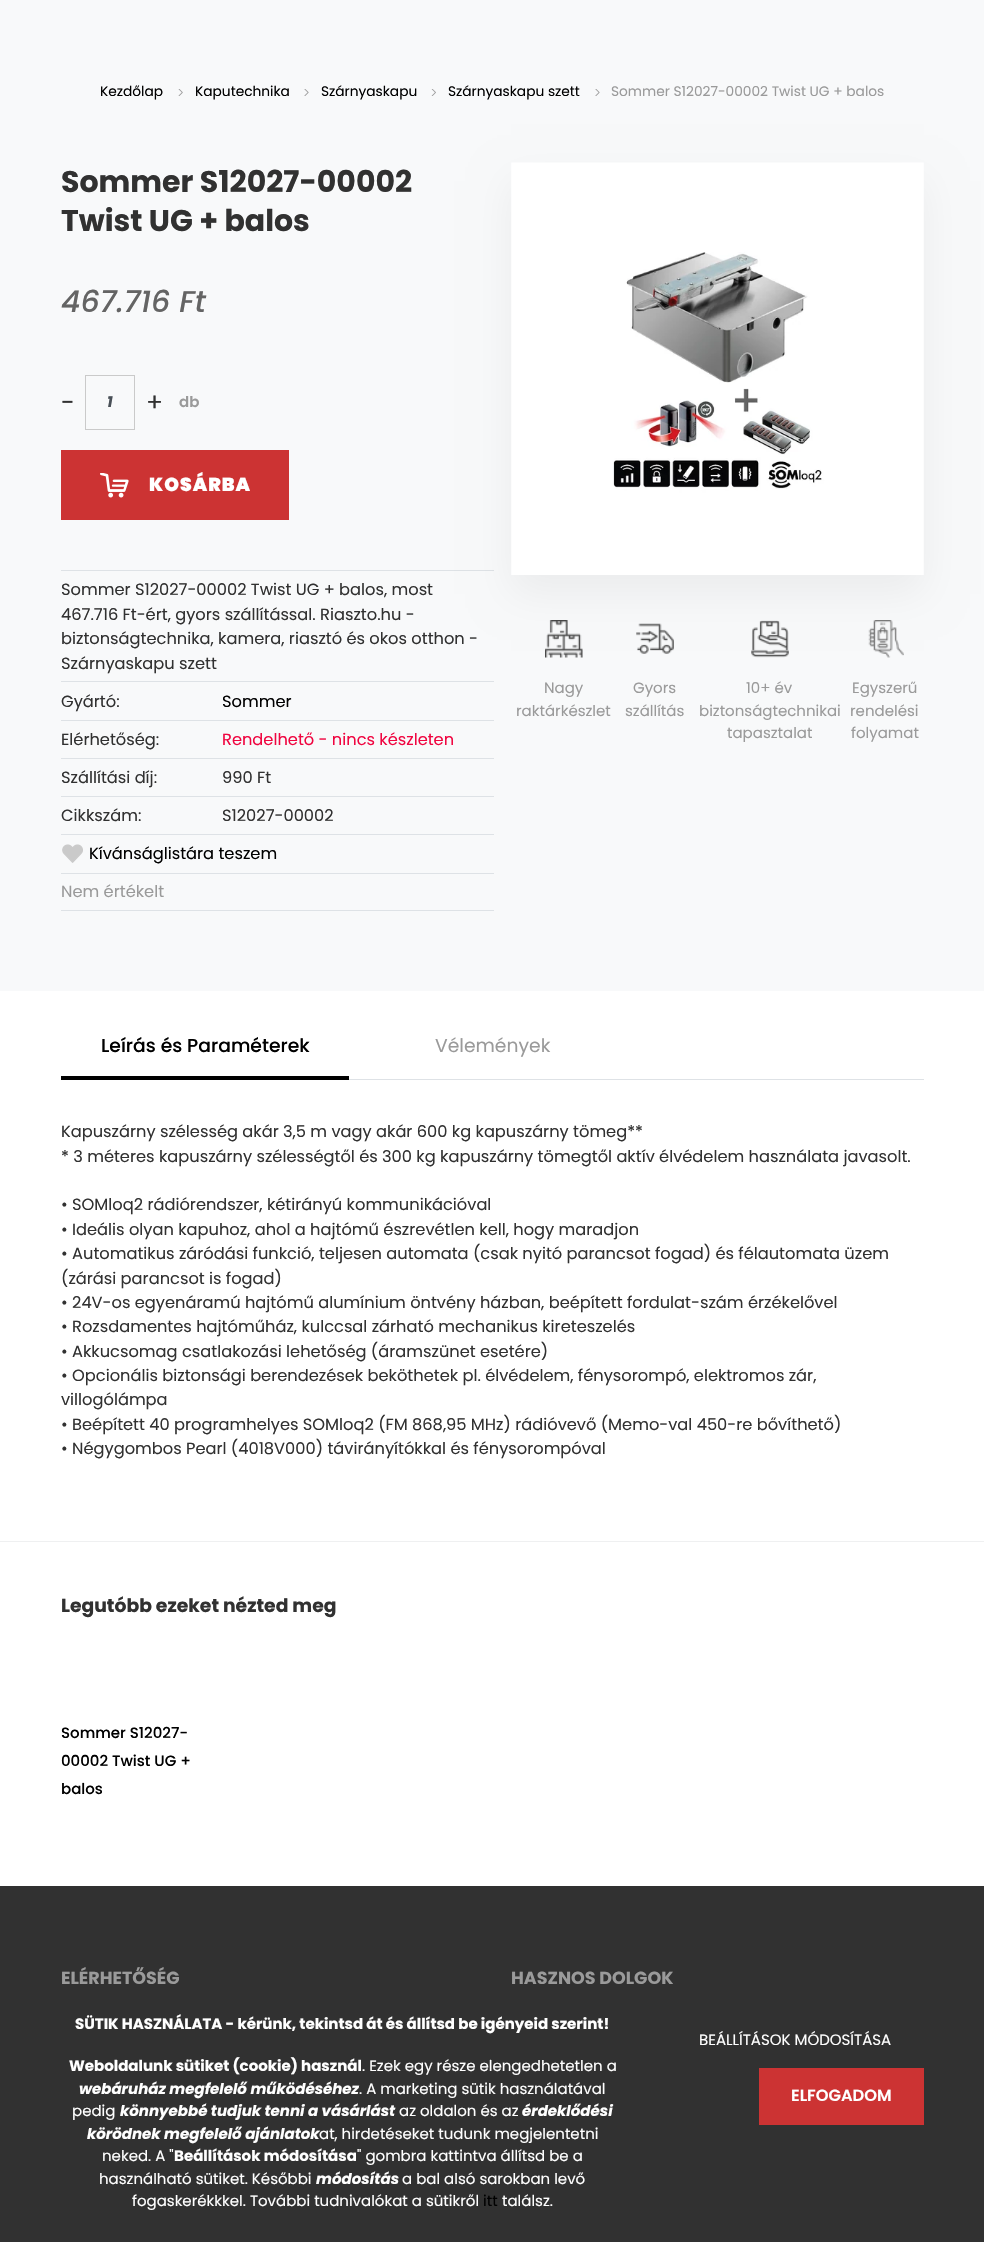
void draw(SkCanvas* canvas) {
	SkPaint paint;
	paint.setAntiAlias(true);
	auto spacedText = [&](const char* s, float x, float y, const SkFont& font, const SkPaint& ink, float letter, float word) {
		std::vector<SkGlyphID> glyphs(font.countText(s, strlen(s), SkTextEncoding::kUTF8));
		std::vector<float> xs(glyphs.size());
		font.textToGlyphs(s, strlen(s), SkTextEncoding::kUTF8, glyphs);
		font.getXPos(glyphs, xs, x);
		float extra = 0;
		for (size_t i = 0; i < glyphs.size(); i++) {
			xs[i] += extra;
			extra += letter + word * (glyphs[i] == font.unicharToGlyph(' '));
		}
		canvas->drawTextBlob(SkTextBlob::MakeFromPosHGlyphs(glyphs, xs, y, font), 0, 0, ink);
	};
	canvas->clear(0xffffffff);
	paint.setColor(0xfff8f9fa);
	canvas->drawRect(SkRect::MakeXYWH(0, 0, 984, 991), paint);
	SkFont f1(fontMgr->matchFamilyStyle("Poppins", SkFontStyle::Normal()), 13.75);
	f1.setSubpixel(true);
	paint.setColor(0xff000000);
	canvas->drawString("Kezdőlap", 100, 96, f1, paint);
	canvas->drawImageRect(SkImages::DeferredFromEncodedData(SkData::MakeFromFileName("img1.png")), SkRect::MakeXYWH(178, 89, 5, 7), SkSamplingOptions());
	canvas->drawString("Kaputechnika", 195, 96, f1, paint);
	canvas->drawImageRect(SkImages::DeferredFromEncodedData(SkData::MakeFromFileName("img2.png")), SkRect::MakeXYWH(304, 89, 5, 7), SkSamplingOptions());
	canvas->drawString("Szárnyaskapu", 321, 96, f1, paint);
	canvas->drawImageRect(SkImages::DeferredFromEncodedData(SkData::MakeFromFileName("img3.png")), SkRect::MakeXYWH(431, 89, 5, 7), SkSamplingOptions());
	canvas->drawString("Szárnyaskapu szett", 448, 96, f1, paint);
	canvas->drawImageRect(SkImages::DeferredFromEncodedData(SkData::MakeFromFileName("img4.png")), SkRect::MakeXYWH(595, 89, 5, 7), SkSamplingOptions());
	paint.setColor(0xff9a9a9a);
	canvas->drawString("Sommer S12027-00002 Twist UG + balos", 611, 96, f1, paint);
	SkFont f2(fontMgr->matchFamilyStyle("Poppins", SkFontStyle::Bold()), 30);
	f2.setSubpixel(true);
	paint.setColor(0xff313131);
	canvas->drawString("Sommer S12027-00002", 61, 192, f2, paint);
	canvas->drawString("Twist UG + balos", 61, 231, f2, paint);
	SkFont f3(fontMgr->matchFamilyStyle("Poppins", SkFontStyle(500, SkFontStyle::kNormal_Width, SkFontStyle::kItalic_Slant)), 30);
	f3.setSubpixel(true);
	paint.setColor(0xff646464);
	canvas->drawString("467.716 Ft", 61, 312, f3, paint);
	SkFont f4(fontMgr->matchFamilyStyle("Poppins", SkFontStyle::Normal()), 25);
	f4.setSubpixel(true);
	paint.setColor(0xff313131);
	canvas->drawString("-", 61, 411, f4, paint);
	paint.setStroke(true);
	paint.setStrokeWidth(1);
	paint.setColor(0xffcacaca);
	canvas->drawRect(SkRect::MakeXYWH(85.5, 375.5, 49, 54), paint);
	SkFont f5(fontMgr->matchFamilyStyle("Poppins", SkFontStyle::BoldItalic()), 15);
	f5.setSubpixel(true);
	paint.setStroke(false);
	paint.setColor(0xff495057);
	canvas->drawString("1", 107, 407, f5, paint);
	paint.setColor(0xff313131);
	canvas->drawString("+", 146, 411, f4, paint);
	SkFont f6(fontMgr->matchFamilyStyle("Poppins", SkFontStyle(600, SkFontStyle::kNormal_Width, SkFontStyle::kUpright_Slant)), 15);
	f6.setSubpixel(true);
	paint.setColor(0xff9a9a9a);
	canvas->drawString("db", 179, 407, f6, paint);
	paint.setColor(0xffcc3333);
	canvas->drawRect(SkRect::MakeXYWH(61, 450, 228, 70), paint);
	canvas->drawImageRect(SkImages::DeferredFromEncodedData(SkData::MakeFromFileName("img5.png")), SkRect::MakeXYWH(100, 473, 29, 25), SkSamplingOptions());
	SkFont f7(fontMgr->matchFamilyStyle("Poppins", SkFontStyle(900, SkFontStyle::kNormal_Width, SkFontStyle::kUpright_Slant)), 18.75);
	f7.setSubpixel(true);
	paint.setColor(0xffffffff);
	spacedText("KOSÁRBA", 149, 491, f7, paint, 1, 0);
	paint.setColor(0xffdee2e6);
	canvas->drawRect(SkRect::MakeXYWH(61, 570, 433, 1), paint);
	SkFont f8(fontMgr->matchFamilyStyle("Poppins", SkFontStyle::Normal()), 16.25);
	f8.setSubpixel(true);
	paint.setColor(0xff313131);
	canvas->drawString("Sommer S12027-00002 Twist UG + balos, most", 61, 595, f8, paint);
	canvas->drawString("467.716 Ft-ért, gyors szállítással. Riaszto.hu -", 61, 620, f8, paint);
	canvas->drawString("biztonságtechnika, kamera, riasztó és okos otthon -", 61, 644, f8, paint);
	canvas->drawString("Szárnyaskapu szett", 61, 669, f8, paint);
	canvas->drawString("Gyártó:", 61, 707, f8, paint);
	paint.setColor(0xffdee2e6);
	canvas->drawRect(SkRect::MakeXYWH(61, 681, 433, 1), paint);
	paint.setColor(0xff000000);
	canvas->drawString("Sommer", 222, 707, f8, paint);
	paint.setColor(0xff313131);
	canvas->drawString("Elérhetőség:", 61, 745, f8, paint);
	paint.setColor(0xffdee2e6);
	canvas->drawRect(SkRect::MakeXYWH(61, 720, 433, 1), paint);
	paint.setColor(0xfff00540);
	canvas->drawString("Rendelhető - nincs készleten", 222, 745, f8, paint);
	paint.setColor(0xff313131);
	canvas->drawString("Szállítási díj:", 61, 783, f8, paint);
	paint.setColor(0xffdee2e6);
	canvas->drawRect(SkRect::MakeXYWH(61, 758, 433, 1), paint);
	paint.setColor(0xff313131);
	canvas->drawString("990 Ft", 222, 783, f8, paint);
	canvas->drawString("Cikkszám:", 61, 821, f8, paint);
	paint.setColor(0xffdee2e6);
	canvas->drawRect(SkRect::MakeXYWH(61, 796, 433, 1), paint);
	paint.setColor(0xff313131);
	canvas->drawString("S12027-00002", 222, 821, f8, paint);
	paint.setColor(0xffdee2e6);
	canvas->drawRect(SkRect::MakeXYWH(61, 834, 433, 1), paint);
	canvas->drawImageRect(SkImages::DeferredFromEncodedData(SkData::MakeFromFileName("img6.png")), SkRect::MakeXYWH(62, 844, 21, 19), SkSamplingOptions());
	paint.setColor(0xff000000);
	canvas->drawString("Kívánságlistára teszem", 89, 859, f8, paint);
	paint.setColor(0xffdee2e6);
	canvas->drawRect(SkRect::MakeXYWH(61, 873, 433, 1), paint);
	canvas->drawRect(SkRect::MakeXYWH(61, 910, 433, 1), paint);
	paint.setColor(0xff9a9a9a);
	canvas->drawString("Nem értékelt", 61, 897, f8, paint);
	canvas->drawImageRect(SkImages::DeferredFromEncodedData(SkData::MakeFromFileName("img8.png")), SkRect::MakeXYWH(545, 620, 38, 38), SkSamplingOptions());
	canvas->drawImageRect(SkImages::DeferredFromEncodedData(SkData::MakeFromFileName("img9.png")), SkRect::MakeXYWH(636, 623, 38, 31), SkSamplingOptions());
	canvas->drawImageRect(SkImages::DeferredFromEncodedData(SkData::MakeFromFileName("img10.png")), SkRect::MakeXYWH(751, 620, 38, 38), SkSamplingOptions());
	canvas->drawImageRect(SkImages::DeferredFromEncodedData(SkData::MakeFromFileName("img11.png")), SkRect::MakeXYWH(868, 620, 36, 38), SkSamplingOptions());
	paint.setColor(0x0d000000);
	paint.setMaskFilter(SkMaskFilter::MakeBlur(kNormal_SkBlurStyle, 19));
	canvas->drawRect(SkRect::MakeXYWH(511, 181, 413, 413), paint);
	paint.setMaskFilter(nullptr);
	canvas->drawImageRect(SkImages::DeferredFromEncodedData(SkData::MakeFromFileName("img7.png")), SkRect::MakeXYWH(511, 162, 413, 413), SkSamplingOptions());
	SkFont f9(fontMgr->matchFamilyStyle("Poppins", SkFontStyle::Normal()), 15);
	f9.setSubpixel(true);
	paint.setColor(0xff9a9a9a);
	canvas->drawString("Nagy", 544, 693, f9, paint);
	canvas->drawString("raktárkészlet", 516, 716, f9, paint);
	canvas->drawString("Gyors", 633, 693, f9, paint);
	canvas->drawString("szállítás", 625, 716, f9, paint);
	canvas->drawString("10+ év", 746, 693, f9, paint);
	canvas->drawString("biztonságtechnikai", 699, 716, f9, paint);
	canvas->drawString("tapasztalat", 727, 738, f9, paint);
	canvas->drawString("Egyszerű", 852, 693, f9, paint);
	canvas->drawString("rendelési", 850, 716, f9, paint);
	canvas->drawString("folyamat", 851, 738, f9, paint);
	paint.setColor(0xffdee2e6);
	canvas->drawRect(SkRect::MakeXYWH(349, 1079, 575, 1), paint);
	paint.setColor(0xff000000);
	canvas->drawRect(SkRect::MakeXYWH(61, 1076, 288, 4), paint);
	SkFont f10(fontMgr->matchFamilyStyle("Poppins", SkFontStyle(500, SkFontStyle::kNormal_Width, SkFontStyle::kUpright_Slant)), 18.75);
	f10.setSubpixel(true);
	canvas->drawString("Leírás és Paraméterek", 101, 1052, f10, paint);
	SkFont f11(fontMgr->matchFamilyStyle("Poppins", SkFontStyle::Normal()), 18.75);
	f11.setSubpixel(true);
	paint.setColor(0xff9a9a9a);
	canvas->drawString("Vélemények", 435, 1052, f11, paint);
	paint.setColor(0xff313131);
	canvas->drawString("Kapuszárny szélesség akár 3,5 m vagy akár 600 kg kapuszárny tömeg**", 61, 1137, f8, paint);
	canvas->drawString("* 3 méteres kapuszárny szélességtől és 300 kg kapuszárny tömegtől aktív élvédelem használata javasolt.", 61, 1162, f8, paint);
	canvas->drawString("• SOMloq2 rádiórendszer, kétirányú kommunikációval", 61, 1210, f8, paint);
	canvas->drawString("• Ideális olyan kapuhoz, ahol a hajtómű észrevétlen kell, hogy maradjon", 61, 1235, f8, paint);
	canvas->drawString("• Automatikus záródási funkció, teljesen automata (csak nyitó parancsot fogad) és félautomata üzem", 61, 1259, f8, paint);
	canvas->drawString("(zárási parancsot is fogad)", 61, 1284, f8, paint);
	canvas->drawString("• 24V-os egyenáramú hajtómű alumínium öntvény házban, beépített fordulat-szám érzékelővel", 61, 1308, f8, paint);
	canvas->drawString("• Rozsdamentes hajtóműház, kulccsal zárható mechanikus kireteszelés", 61, 1332, f8, paint);
	canvas->drawString("• Akkucsomag csatlakozási lehetőség (áramszünet esetére)", 61, 1357, f8, paint);
	canvas->drawString("• Opcionális biztonsági berendezések beköthetek pl. élvédelem, fénysorompó, elektromos zár,", 61, 1381, f8, paint);
	canvas->drawString("villogólámpa", 61, 1405, f8, paint);
	canvas->drawString("• Beépített 40 programhelyes SOMloq2 (FM 868,95 MHz) rádióvevő (Memo-val 450-re bővíthető)", 61, 1430, f8, paint);
	canvas->drawString("• Négygombos Pearl (4018V000) távirányítókkal és fénysorompóval", 61, 1454, f8, paint);
	paint.setColor(0xffeff0f1);
	canvas->drawRect(SkRect::MakeXYWH(0, 1541, 984, 1), paint);
	SkFont f12(fontMgr->matchFamilyStyle("Poppins", SkFontStyle::Bold()), 18.75);
	f12.setSubpixel(true);
	paint.setColor(0xff313131);
	canvas->drawString("Legutóbb ezeket nézted meg", 61, 1612, f12, paint);
	SkFont f13(fontMgr->matchFamilyStyle("Poppins", SkFontStyle(500, SkFontStyle::kNormal_Width, SkFontStyle::kUpright_Slant)), 15);
	f13.setSubpixel(true);
	paint.setColor(0xff000000);
	canvas->drawString("Sommer S12027-", 61, 1738, f13, paint);
	canvas->drawString("00002 Twist UG +", 61, 1766, f13, paint);
	canvas->drawString("balos", 61, 1794, f13, paint);
	paint.setColor(0xff313131);
	canvas->drawRect(SkRect::MakeXYWH(0, 1886, 984, 356), paint);
	SkFont f14(fontMgr->matchFamilyStyle("Poppins", SkFontStyle::Bold()), 17.5);
	f14.setSubpixel(true);
	paint.setColor(0xff9a9a9a);
	canvas->drawString("ELÉRHETŐSÉG", 61, 1984, f14, paint);
	canvas->drawString("HASZNOS DOLGOK", 511, 1984, f14, paint);
	SkFont f15(fontMgr->matchFamilyStyle("Poppins", SkFontStyle::Bold()), 15);
	f15.setSubpixel(true);
	paint.setColor(0xffffffff);
	canvas->drawString("SÜTIK HASZNÁLATA - kérünk, tekintsd át és állítsd be igényeid szerint!", 75, 2029, f15, paint);
	canvas->drawString("Weboldalunk sütiket (cookie) használ", 69, 2071, f15, paint);
	canvas->drawString(". Ezek egy része elengedhetetlen a", 362, 2071, f9, paint);
	canvas->drawString("webáruház megfelelő működéséhez", 79, 2094, f5, paint);
	canvas->drawString(". A marketing sütik használatával", 359, 2094, f9, paint);
	canvas->drawString("pedig", 72, 2116, f9, paint);
	canvas->drawString("könnyebbé tudjuk tenni a vásárlást", 120, 2116, f5, paint);
	canvas->drawString("az oldalon és az", 399, 2116, f9, paint);
	canvas->drawString("érdeklődési", 522, 2116, f5, paint);
	canvas->drawString("körödnek megfelelő ajánlatok", 87, 2139, f5, paint);
	canvas->drawString("at, hirdetéseket tudunk megjelentetni", 319, 2139, f9, paint);
	canvas->drawString("neked. A \"", 102, 2161, f9, paint);
	canvas->drawString("Beállítások módosítása", 174, 2161, f15, paint);
	canvas->drawString("\" gombra kattintva állítsd be a", 357, 2161, f9, paint);
	canvas->drawString("használható sütiket. Későbbi", 99, 2184, f9, paint);
	canvas->drawString("módosítás", 316, 2184, f5, paint);
	canvas->drawString("a bal alsó sarokban levő", 402, 2184, f9, paint);
	canvas->drawString("fogaskerékkkel. További tudnivalókat a sütikről", 132, 2206, f9, paint);
	paint.setColor(0xff000000);
	canvas->drawString("itt", 483, 2206, f9, paint);
	paint.setColor(0xffffffff);
	canvas->drawString("találsz.", 502, 2206, f9, paint);
	canvas->drawString("BEÁLLÍTÁSOK MÓDOSÍTÁSA", 699, 2045, f9, paint);
	paint.setColor(0xffcc3333);
	canvas->drawRect(SkRect::MakeXYWH(759, 2068, 165, 57), paint);
	SkFont f16(fontMgr->matchFamilyStyle("Poppins", SkFontStyle(600, SkFontStyle::kNormal_Width, SkFontStyle::kUpright_Slant)), 16.25);
	f16.setSubpixel(true);
	paint.setColor(0xffffffff);
	canvas->drawString("ELFOGADOM", 791, 2101, f16, paint);
}
